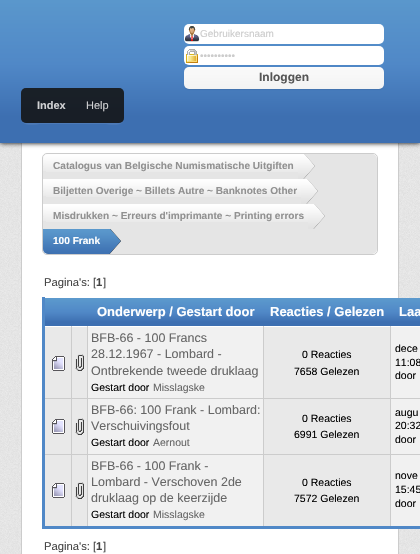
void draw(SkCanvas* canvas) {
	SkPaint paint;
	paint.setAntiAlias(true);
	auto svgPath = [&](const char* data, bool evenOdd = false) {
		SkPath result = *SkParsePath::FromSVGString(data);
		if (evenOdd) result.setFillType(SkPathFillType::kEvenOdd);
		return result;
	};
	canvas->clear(0xffffffff);
	canvas->drawImageRect(SkImages::DeferredFromEncodedData(SkData::MakeFromFileName("img1.png")), SkRect::MakeXYWH(0, 143, 420, 411), SkSamplingOptions());
	paint.setColor(0xffffffff);
	canvas->drawRect(SkRect::MakeXYWH(22, 143, 376, 411), paint);
	paint.setColor(0xffcccccc);
	canvas->drawPath(svgPath("M21 143H399V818C399 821 397 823 394 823H26C23 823 21 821 21 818ZM22 143H398V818C398 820 396 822 394 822H26C24 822 22 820 22 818Z", true), paint);
	paint.setColor(0xff000000);
	paint.setMaskFilter(SkMaskFilter::MakeBlur(kNormal_SkBlurStyle, 2.5));
	canvas->drawRect(SkRect::MakeXYWH(0, -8, 420, 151), paint);
	paint.setMaskFilter(nullptr);
	{
		const SkColor colors[] = {0xff3d6fb1, 0xff5088c7, 0xff5c9acd};
		const float stops[] = {0.17, 0.51, 1};
		const SkPoint ends[] = {{0, 143}, {0, -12}};
		paint.setShader(SkGradientShader::MakeLinear(ends, colors, stops, 3, SkTileMode::kClamp));
		paint.setAlpha(255);
	}
	canvas->drawRect(SkRect::MakeXYWH(0, 0, 420, 143), paint);
	paint.setShader(nullptr);
	paint.setColor(0xffffffff);
	canvas->drawRoundRect(SkRect::MakeXYWH(184, 24, 200, 20), 5, 5, paint);
	canvas->drawImageRect(SkImages::DeferredFromEncodedData(SkData::MakeFromFileName("img2.png")), SkRect::MakeXYWH(185, 26, 15, 16), SkSamplingOptions());
	SkFont f1(fontMgr->matchFamilyStyle("Liberation Sans", SkFontStyle::Normal()), 10);
	f1.setSubpixel(true);
	paint.setColor(0xffcccccc);
	canvas->drawString("Gebruikersnaam", 200, 37, f1, paint);
	paint.setColor(0xffffffff);
	canvas->drawRoundRect(SkRect::MakeXYWH(184, 46, 200, 19), 5, 5, paint);
	canvas->drawImageRect(SkImages::DeferredFromEncodedData(SkData::MakeFromFileName("img3.png")), SkRect::MakeXYWH(185, 49, 13, 15), SkSamplingOptions());
	paint.setColor(0xffcccccc);
	canvas->drawString("••••••••••", 200, 59, f1, paint);
	paint.setColor(0x14000000);
	paint.setMaskFilter(SkMaskFilter::MakeBlur(kNormal_SkBlurStyle, 0.5));
	canvas->drawRoundRect(SkRect::MakeXYWH(184, 68, 200, 22), 5, 5, paint);
	paint.setMaskFilter(nullptr);
	canvas->drawImageRect(SkImages::DeferredFromEncodedData(SkData::MakeFromFileName("img4.png")), SkRect::MakeXYWH(184, 67, 200, 22), SkSamplingOptions());
	SkFont f2(fontMgr->matchFamilyStyle("Liberation Sans", SkFontStyle::Bold()), 12);
	f2.setSubpixel(true);
	paint.setColor(0xff555555);
	canvas->drawString("Inloggen", 259, 81, f2, paint);
	paint.setColor(0xff4d7ab7);
	canvas->drawPath(svgPath("M21 118C21 128 36 124 42 124H104C109 124 124 128 124 118C124 121 122 123 119 123H26C23 123 21 121 21 118Z"), paint);
	paint.setColor(0xcc222222);
	canvas->drawRoundRect(SkRect::MakeXYWH(21, 88, 103, 35), 5, 5, paint);
	canvas->drawImageRect(SkImages::DeferredFromEncodedData(SkData::MakeFromFileName("img5.png")), SkRect::MakeXYWH(21, 88, 103, 35), SkSamplingOptions());
	SkFont f3(fontMgr->matchFamilyStyle("Liberation Sans", SkFontStyle::Bold()), 11);
	f3.setSubpixel(true);
	paint.setColor(0xffd1d2d4);
	canvas->drawString("Index", 37, 109, f3, paint);
	SkFont f4(fontMgr->matchFamilyStyle("Liberation Sans", SkFontStyle::Normal()), 11);
	f4.setSubpixel(true);
	canvas->drawString("Help", 86, 109, f4, paint);
	paint.setStroke(true);
	paint.setStrokeWidth(1);
	paint.setColor(0xffcccccc);
	canvas->drawRoundRect(SkRect::MakeXYWH(42.5, 153.5, 335, 101), 4.5, 4.5, paint);
	paint.setStroke(false);
	paint.setColor(0xffe5e5e5);
	canvas->drawRoundRect(SkRect::MakeXYWH(43, 154, 334, 100), 5, 5, paint);
	canvas->drawImageRect(SkImages::DeferredFromEncodedData(SkData::MakeFromFileName("img6.png")), SkRect::MakeXYWH(43, 154, 3, 17), SkSamplingOptions());
	canvas->drawImageRect(SkImages::DeferredFromEncodedData(SkData::MakeFromFileName("img7.png")), SkRect::MakeXYWH(46, 154, 252, 18), SkSamplingOptions());
	SkFont f5(fontMgr->matchFamilyStyle("Liberation Sans", SkFontStyle::Bold()), 10.1);
	f5.setSubpixel(true);
	paint.setColor(0xff919191);
	canvas->drawString("Catalogus van Belgische Numismatische Uitgiften", 53, 169, f5, paint);
	canvas->drawImageRect(SkImages::DeferredFromEncodedData(SkData::MakeFromFileName("img8.png")), SkRect::MakeXYWH(298, 154, 17, 25), SkSamplingOptions());
	canvas->drawImageRect(SkImages::DeferredFromEncodedData(SkData::MakeFromFileName("img9.png")), SkRect::MakeXYWH(43, 179, 3, 17), SkSamplingOptions());
	canvas->drawImageRect(SkImages::DeferredFromEncodedData(SkData::MakeFromFileName("img10.png")), SkRect::MakeXYWH(46, 179, 255, 18), SkSamplingOptions());
	canvas->drawString("Biljetten Overige ~ Billets Autre ~ Banknotes Other", 53, 194, f5, paint);
	canvas->drawImageRect(SkImages::DeferredFromEncodedData(SkData::MakeFromFileName("img8.png")), SkRect::MakeXYWH(301, 179, 17, 25), SkSamplingOptions());
	canvas->drawImageRect(SkImages::DeferredFromEncodedData(SkData::MakeFromFileName("img9.png")), SkRect::MakeXYWH(43, 204, 3, 17), SkSamplingOptions());
	canvas->drawImageRect(SkImages::DeferredFromEncodedData(SkData::MakeFromFileName("img11.png")), SkRect::MakeXYWH(46, 204, 262, 18), SkSamplingOptions());
	canvas->drawString("Misdrukken ~ Erreurs d'imprimante ~ Printing errors", 53, 219, f5, paint);
	canvas->drawImageRect(SkImages::DeferredFromEncodedData(SkData::MakeFromFileName("img8.png")), SkRect::MakeXYWH(308, 204, 17, 25), SkSamplingOptions());
	canvas->drawImageRect(SkImages::DeferredFromEncodedData(SkData::MakeFromFileName("img12.png")), SkRect::MakeXYWH(43, 229, 3, 25), SkSamplingOptions());
	canvas->drawImageRect(SkImages::DeferredFromEncodedData(SkData::MakeFromFileName("img13.png")), SkRect::MakeXYWH(46, 229, 58, 25), SkSamplingOptions());
	paint.setColor(0xffffffff);
	canvas->drawString("100 Frank", 53, 244, f5, paint);
	canvas->drawImageRect(SkImages::DeferredFromEncodedData(SkData::MakeFromFileName("img14.png")), SkRect::MakeXYWH(104, 229, 17, 25), SkSamplingOptions());
	SkFont f6(fontMgr->matchFamilyStyle("Liberation Sans", SkFontStyle::Normal()), 11.25);
	f6.setSubpixel(true);
	paint.setColor(0xff444444);
	canvas->drawString("Pagina's: [", 44, 286, f6, paint);
	SkFont f7(fontMgr->matchFamilyStyle("Liberation Sans", SkFontStyle::Bold()), 11.25);
	f7.setSubpixel(true);
	canvas->drawString("1", 96, 286, f7, paint);
	canvas->drawString("]", 103, 286, f6, paint);
	paint.setColor(0xffffffff);
	canvas->drawRect(SkRect::MakeXYWH(398, 326, 22, 1), paint);
	{
		const SkColor colors[] = {0xff3d6fb1, 0xff5088c7, 0xff5c9acd};
		const float stops[] = {0.17, 0.51, 1};
		const SkPoint ends[] = {{47, 327}, {47, 298}};
		paint.setShader(SkGradientShader::MakeLinear(ends, colors, stops, 3, SkTileMode::kClamp));
		paint.setAlpha(255);
	}
	canvas->drawRect(SkRect::MakeXYWH(45, 298, 375, 28), paint);
	SkFont f8(fontMgr->matchFamilyStyle("Liberation Sans", SkFontStyle::Bold()), 13);
	f8.setSubpixel(true);
	paint.setShader(nullptr);
	paint.setColor(0xffffffff);
	canvas->drawString("Onderwerp / Gestart door", 97, 316, f8, paint);
	canvas->drawString("Reacties / Gelezen", 270, 316, f8, paint);
	canvas->drawString("Laa", 399, 316, f8, paint);
	paint.setColor(0xffcccccc);
	canvas->drawRect(SkRect::MakeXYWH(71, 454, 1, 74), paint);
	canvas->drawRect(SkRect::MakeXYWH(87, 454, 1, 74), paint);
	canvas->drawRect(SkRect::MakeXYWH(390, 454, 1, 74), paint);
	canvas->drawRect(SkRect::MakeXYWH(263, 454, 1, 74), paint);
	paint.setColor(0xff5088c7);
	canvas->drawRect(SkRect::MakeXYWH(42, 526, 378, 3), paint);
	paint.setColor(0xffcccccc);
	canvas->drawRect(SkRect::MakeXYWH(390, 454, 30, 1), paint);
	canvas->drawRect(SkRect::MakeXYWH(390, 398, 1, 57), paint);
	canvas->drawRect(SkRect::MakeXYWH(390, 398, 30, 1), paint);
	canvas->drawRect(SkRect::MakeXYWH(390, 326, 1, 73), paint);
	canvas->drawRect(SkRect::MakeXYWH(263, 454, 128, 1), paint);
	canvas->drawRect(SkRect::MakeXYWH(263, 398, 1, 57), paint);
	canvas->drawRect(SkRect::MakeXYWH(263, 398, 128, 1), paint);
	canvas->drawRect(SkRect::MakeXYWH(263, 326, 1, 73), paint);
	canvas->drawRect(SkRect::MakeXYWH(87, 454, 177, 1), paint);
	canvas->drawRect(SkRect::MakeXYWH(87, 398, 1, 57), paint);
	canvas->drawRect(SkRect::MakeXYWH(87, 398, 177, 1), paint);
	canvas->drawRect(SkRect::MakeXYWH(87, 326, 1, 73), paint);
	canvas->drawRect(SkRect::MakeXYWH(71, 454, 17, 1), paint);
	canvas->drawRect(SkRect::MakeXYWH(71, 398, 1, 57), paint);
	canvas->drawRect(SkRect::MakeXYWH(71, 398, 17, 1), paint);
	canvas->drawRect(SkRect::MakeXYWH(71, 326, 1, 73), paint);
	canvas->drawRect(SkRect::MakeXYWH(43, 398, 29, 1), paint);
	canvas->drawRect(SkRect::MakeXYWH(43, 454, 29, 1), paint);
	paint.setColor(0xff5088c7);
	canvas->drawRect(SkRect::MakeXYWH(42, 297, 3, 232), paint);
	paint.setColor(0xffe9e9e9);
	canvas->drawRect(SkRect::MakeXYWH(45, 327, 26, 71), paint);
	canvas->drawImageRect(SkImages::DeferredFromEncodedData(SkData::MakeFromFileName("img15.png")), SkRect::MakeXYWH(52, 356, 13, 15), SkSamplingOptions());
	canvas->drawRect(SkRect::MakeXYWH(72, 327, 15, 71), paint);
	canvas->drawImageRect(SkImages::DeferredFromEncodedData(SkData::MakeFromFileName("img16.png")), SkRect::MakeXYWH(75, 354, 9, 17), SkSamplingOptions());
	paint.setColor(0xfff1f1f1);
	canvas->drawRect(SkRect::MakeXYWH(88, 327, 175, 71), paint);
	SkFont f9(fontMgr->matchFamilyStyle("Liberation Sans", SkFontStyle::Normal()), 12.5);
	f9.setSubpixel(true);
	paint.setColor(0xff666666);
	canvas->drawString("BFB-66 - 100 Francs", 91, 342, f9, paint);
	canvas->drawString("28.12.1967 - Lombard -", 91, 358, f9, paint);
	canvas->drawString("Ontbrekende tweede druklaag", 91, 375, f9, paint);
	SkFont f10(fontMgr->matchFamilyStyle("Liberation Sans", SkFontStyle::Normal()), 10.5);
	f10.setSubpixel(true);
	paint.setColor(0xff000000);
	canvas->drawString("Gestart door", 91, 391, f10, paint);
	paint.setColor(0xff666666);
	canvas->drawString("Misslagske", 153, 391, f10, paint);
	paint.setColor(0xffe9e9e9);
	canvas->drawRect(SkRect::MakeXYWH(264, 327, 126, 71), paint);
	paint.setColor(0xff000000);
	canvas->drawString("0 Reacties", 302, 358, f10, paint);
	canvas->drawString("7658 Gelezen", 294, 375, f10, paint);
	paint.setColor(0xfff1f1f1);
	canvas->drawRect(SkRect::MakeXYWH(391, 327, 29, 71), paint);
	paint.setColor(0xff000000);
	canvas->drawString("dece", 395, 352, f10, paint);
	canvas->drawString("11:08", 395, 366, f10, paint);
	canvas->drawString("door", 395, 379, f10, paint);
	paint.setColor(0xffe9e9e9);
	canvas->drawRect(SkRect::MakeXYWH(45, 399, 26, 55), paint);
	canvas->drawImageRect(SkImages::DeferredFromEncodedData(SkData::MakeFromFileName("img15.png")), SkRect::MakeXYWH(52, 419, 13, 15), SkSamplingOptions());
	canvas->drawRect(SkRect::MakeXYWH(72, 399, 15, 55), paint);
	canvas->drawImageRect(SkImages::DeferredFromEncodedData(SkData::MakeFromFileName("img16.png")), SkRect::MakeXYWH(75, 418, 9, 17), SkSamplingOptions());
	paint.setColor(0xfff1f1f1);
	canvas->drawRect(SkRect::MakeXYWH(88, 399, 175, 55), paint);
	paint.setColor(0xff666666);
	canvas->drawString("BFB-66: 100 Frank - Lombard:", 91, 414, f9, paint);
	canvas->drawString("Verschuivingsfout", 91, 430, f9, paint);
	paint.setColor(0xff000000);
	canvas->drawString("Gestart door", 91, 446, f10, paint);
	paint.setColor(0xff666666);
	canvas->drawString("Aernout", 153, 446, f10, paint);
	paint.setColor(0xffe9e9e9);
	canvas->drawRect(SkRect::MakeXYWH(264, 399, 126, 55), paint);
	paint.setColor(0xff000000);
	canvas->drawString("0 Reacties", 302, 422, f10, paint);
	canvas->drawString("6991 Gelezen", 294, 438, f10, paint);
	paint.setColor(0xfff1f1f1);
	canvas->drawRect(SkRect::MakeXYWH(391, 399, 29, 55), paint);
	paint.setColor(0xff000000);
	canvas->drawString("augu", 395, 416, f10, paint);
	canvas->drawString("20:32", 395, 429, f10, paint);
	canvas->drawString("door", 395, 443, f10, paint);
	paint.setColor(0xffe9e9e9);
	canvas->drawRect(SkRect::MakeXYWH(45, 455, 26, 71), paint);
	canvas->drawImageRect(SkImages::DeferredFromEncodedData(SkData::MakeFromFileName("img15.png")), SkRect::MakeXYWH(52, 483, 13, 15), SkSamplingOptions());
	canvas->drawRect(SkRect::MakeXYWH(72, 455, 15, 71), paint);
	canvas->drawImageRect(SkImages::DeferredFromEncodedData(SkData::MakeFromFileName("img16.png")), SkRect::MakeXYWH(75, 482, 9, 17), SkSamplingOptions());
	paint.setColor(0xfff1f1f1);
	canvas->drawRect(SkRect::MakeXYWH(88, 455, 175, 71), paint);
	paint.setColor(0xff666666);
	canvas->drawString("BFB-66 - 100 Frank -", 91, 470, f9, paint);
	canvas->drawString("Lombard - Verschoven 2de", 91, 486, f9, paint);
	canvas->drawString("druklaag op de keerzijde", 91, 502, f9, paint);
	paint.setColor(0xff000000);
	canvas->drawString("Gestart door", 91, 518, f10, paint);
	paint.setColor(0xff666666);
	canvas->drawString("Misslagske", 153, 518, f10, paint);
	paint.setColor(0xffe9e9e9);
	canvas->drawRect(SkRect::MakeXYWH(264, 455, 126, 71), paint);
	paint.setColor(0xff000000);
	canvas->drawString("0 Reacties", 302, 486, f10, paint);
	canvas->drawString("7572 Gelezen", 294, 502, f10, paint);
	paint.setColor(0xfff1f1f1);
	canvas->drawRect(SkRect::MakeXYWH(391, 455, 29, 71), paint);
	paint.setColor(0xff000000);
	canvas->drawString("nove", 395, 479, f10, paint);
	canvas->drawString("15:45", 395, 493, f10, paint);
	canvas->drawString("door", 395, 507, f10, paint);
	paint.setColor(0xff444444);
	canvas->drawString("Pagina's: [", 44, 550, f6, paint);
	canvas->drawString("1", 96, 550, f7, paint);
	canvas->drawString("]", 103, 550, f6, paint);
}
